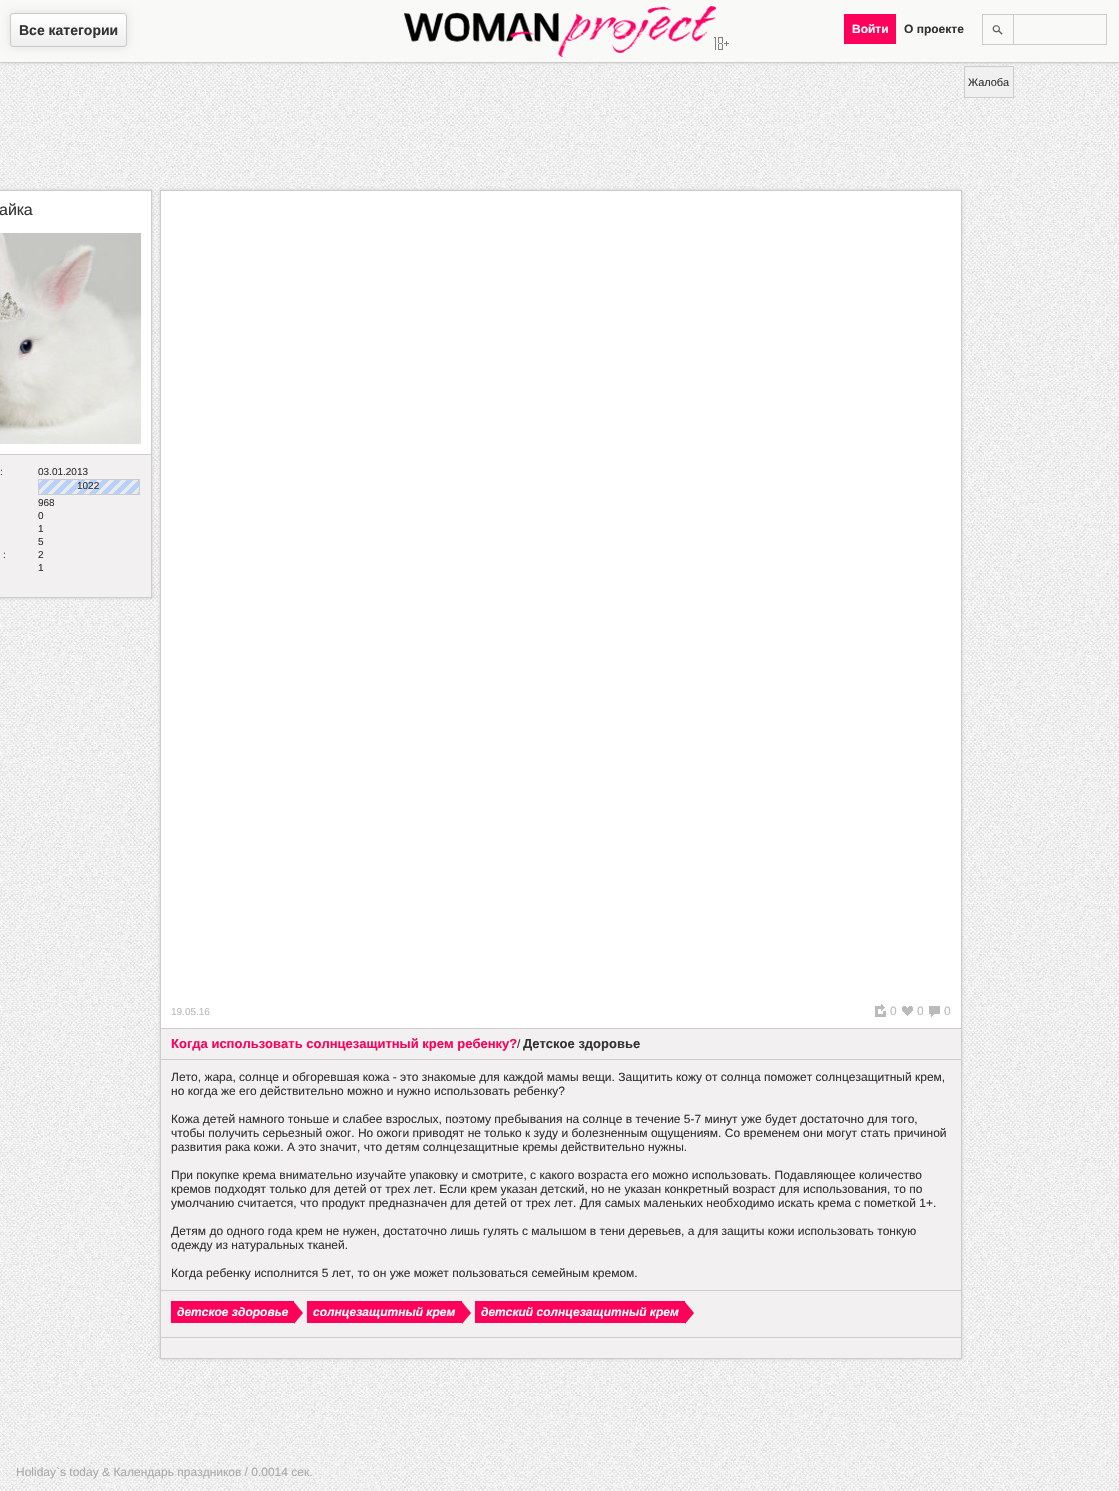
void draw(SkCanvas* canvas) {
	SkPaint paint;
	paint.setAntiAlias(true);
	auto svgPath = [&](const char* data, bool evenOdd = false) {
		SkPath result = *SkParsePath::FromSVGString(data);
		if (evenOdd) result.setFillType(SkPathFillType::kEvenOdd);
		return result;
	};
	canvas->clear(0xffffffff);
	canvas->drawImageRect(SkImages::DeferredFromEncodedData(SkData::MakeFromFileName("img1.png")), SkRect::MakeXYWH(0, 63, 1119, 1428), SkSamplingOptions());
	paint.setColor(0xfff0f0f0);
	canvas->drawRect(SkRect::MakeXYWH(964.5, 66.5, 49, 31), paint);
	paint.setStroke(true);
	paint.setStrokeWidth(1);
	paint.setColor(0xffcccccc);
	canvas->drawRect(SkRect::MakeXYWH(964.5, 66.5, 49, 31), paint);
	paint.setStroke(false);
	paint.setMaskFilter(SkMaskFilter::MakeBlur(kNormal_SkBlurStyle, 1.5));
	canvas->drawRect(SkRect::MakeXYWH(0, 0, 1119, 63), paint);
	paint.setMaskFilter(nullptr);
	paint.setColor(0xfff9f9f8);
	canvas->drawRect(SkRect::MakeXYWH(0, 0, 1119, 62), paint);
	paint.setColor(0xffcccccc);
	canvas->drawRect(SkRect::MakeXYWH(0, 62, 1119, 1), paint);
	paint.setColor(0x1a000000);
	paint.setMaskFilter(SkMaskFilter::MakeBlur(kNormal_SkBlurStyle, 5));
	canvas->drawRoundRect(SkRect::MakeXYWH(10, 13, 117, 34), 3, 3, paint);
	paint.setMaskFilter(nullptr);
	canvas->save();
	canvas->clipPath(svgPath("M13 13H124C125.5 13 127 14.5 127 16V44C127 45.5 125.5 47 124 47H13C11.5 47 10 45.5 10 44V16C10 14.5 11.5 13 13 13Z"), true);
	{
		const SkColor colors[] = {0xffffffff, 0xffeeeeee};
		const float stops[] = {0, 1};
		const SkPoint ends[] = {{69, 14}, {69, 46}};
		paint.setShader(SkGradientShader::MakeLinear(ends, colors, stops, 2, SkTileMode::kClamp));
		paint.setAlpha(255);
	}
	canvas->drawRect(SkRect::MakeXYWH(10, 14, 117, 32), paint);
	canvas->restore();
	paint.setStroke(true);
	paint.setShader(nullptr);
	paint.setColor(0xffcbcbcb);
	canvas->drawRoundRect(SkRect::MakeXYWH(10.5, 13.5, 116, 33), 2.5, 2.5, paint);
	SkFont f1(fontMgr->matchFamilyStyle("Liberation Sans", SkFontStyle::Bold()), 14);
	f1.setSubpixel(true);
	paint.setStroke(false);
	paint.setColor(0xff333333);
	canvas->drawString("Все категории", 19, 35, f1, paint);
	canvas->drawImageRect(SkImages::DeferredFromEncodedData(SkData::MakeFromFileName("img2.png")), SkRect::MakeXYWH(714, 37, 15, 13), SkSamplingOptions());
	canvas->drawImageRect(SkImages::DeferredFromEncodedData(SkData::MakeFromFileName("img3.png")), SkRect::MakeXYWH(404, 6, 312, 51), SkSamplingOptions());
	paint.setColor(0xffff005a);
	canvas->drawRect(SkRect::MakeXYWH(844, 14, 52, 30), paint);
	SkFont f2(fontMgr->matchFamilyStyle("Liberation Sans", SkFontStyle::Bold()), 12);
	f2.setSubpixel(true);
	paint.setColor(0xffffffff);
	canvas->drawString("Войти", 852, 33, f2, paint);
	paint.setColor(0xff333333);
	canvas->drawString("О проекте", 904, 33, f2, paint);
	canvas->drawImageRect(SkImages::DeferredFromEncodedData(SkData::MakeFromFileName("img4.png")), SkRect::MakeXYWH(992, 25, 11, 10), SkSamplingOptions());
	paint.setColor(0xffcccccc);
	canvas->drawRect(SkRect::MakeXYWH(982, 14, 31, 1), paint);
	canvas->drawRect(SkRect::MakeXYWH(982, 44, 31, 1), paint);
	canvas->drawRect(SkRect::MakeXYWH(982, 14, 1, 31), paint);
	paint.setStroke(true);
	canvas->drawRect(SkRect::MakeXYWH(1013.5, 14.5, 93, 30), paint);
	SkFont f3(fontMgr->matchFamilyStyle("Liberation Sans", SkFontStyle::Normal()), 11);
	f3.setSubpixel(true);
	paint.setStroke(false);
	paint.setColor(0xff333333);
	canvas->drawString("Жалоба", 968, 86, f3, paint);
	paint.setColor(0xffcccccc);
	paint.setMaskFilter(SkMaskFilter::MakeBlur(kNormal_SkBlurStyle, 1.5));
	canvas->drawRect(SkRect::MakeXYWH(-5, 190, 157, 408), paint);
	paint.setMaskFilter(nullptr);
	paint.setColor(0xfff2f0f0);
	canvas->drawRect(SkRect::MakeXYWH(0, 455, 151, 142), paint);
	paint.setStroke(true);
	paint.setColor(0xffcccccc);
	canvas->drawRect(SkRect::MakeXYWH(-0.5, 190.5, 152, 407), paint);
	paint.setStroke(false);
	paint.setColor(0xffffffff);
	canvas->drawRect(SkRect::MakeXYWH(0, 191, 151, 263), paint);
	paint.setColor(0xffcccccc);
	canvas->drawRect(SkRect::MakeXYWH(150, 454, 1, 1), paint);
	SkFont f4(fontMgr->matchFamilyStyle("Liberation Sans", SkFontStyle::Normal()), 16);
	f4.setSubpixel(true);
	paint.setColor(0xff333333);
	canvas->drawString("айка", -1, 215, f4, paint);
	canvas->drawImageRect(SkImages::DeferredFromEncodedData(SkData::MakeFromFileName("img5.png")), SkRect::MakeXYWH(0, 233, 141, 211), SkSamplingOptions());
	SkFont f5(fontMgr->matchFamilyStyle("Liberation Sans", SkFontStyle::Normal()), 10);
	f5.setSubpixel(true);
	canvas->drawString(":", 0, 475, f5, paint);
	canvas->drawString("03.01.2013", 38, 475, f5, paint);
	paint.setColor(0xffffffff);
	canvas->drawRect(SkRect::MakeXYWH(38.5, 479.5, 101, 15), paint);
	paint.setStroke(true);
	paint.setColor(0xffcccccc);
	canvas->drawRect(SkRect::MakeXYWH(38.5, 479.5, 101, 15), paint);
	canvas->drawImageRect(SkImages::DeferredFromEncodedData(SkData::MakeFromFileName("img6.png")), SkRect::MakeXYWH(39, 480, 100, 14), SkSamplingOptions());
	paint.setStroke(false);
	paint.setColor(0xff333333);
	canvas->drawString("1022", 77, 489, f5, paint);
	canvas->drawString("968", 38, 506, f5, paint);
	canvas->drawString("0", 38, 519, f5, paint);
	canvas->drawString("1", 38, 532, f5, paint);
	canvas->drawString("5", 38, 545, f5, paint);
	canvas->drawString(":", 3, 558, f5, paint);
	canvas->drawString("2", 38, 558, f5, paint);
	canvas->drawString("1", 38, 571, f5, paint);
	paint.setColor(0xffcccccc);
	paint.setMaskFilter(SkMaskFilter::MakeBlur(kNormal_SkBlurStyle, 1.5));
	canvas->drawRect(SkRect::MakeXYWH(160, 190, 802, 1169), paint);
	paint.setMaskFilter(nullptr);
	paint.setColor(0xfff2f0f0);
	canvas->drawRect(SkRect::MakeXYWH(161, 1029, 800, 329), paint);
	paint.setStroke(true);
	paint.setColor(0xffcccccc);
	canvas->drawRect(SkRect::MakeXYWH(160.5, 190.5, 801, 1168), paint);
	paint.setStroke(false);
	paint.setColor(0xffffffff);
	canvas->drawRect(SkRect::MakeXYWH(161, 191, 800, 837), paint);
	paint.setColor(0xffbbbbbb);
	canvas->drawString("19.05.16", 171, 1015, f5, paint);
	canvas->drawImageRect(SkImages::DeferredFromEncodedData(SkData::MakeFromFileName("img7.png")), SkRect::MakeXYWH(875, 1004, 11, 13), SkSamplingOptions());
	SkFont f6(fontMgr->matchFamilyStyle("Liberation Sans", SkFontStyle::Normal()), 12);
	f6.setSubpixel(true);
	canvas->drawString("0", 890, 1015, f6, paint);
	canvas->drawImageRect(SkImages::DeferredFromEncodedData(SkData::MakeFromFileName("img8.png")), SkRect::MakeXYWH(902, 1006, 11, 10), SkSamplingOptions());
	canvas->drawString("0", 917, 1015, f6, paint);
	canvas->drawImageRect(SkImages::DeferredFromEncodedData(SkData::MakeFromFileName("img9.png")), SkRect::MakeXYWH(929, 1006, 11, 11), SkSamplingOptions());
	canvas->drawString("0", 944, 1015, f6, paint);
	paint.setColor(0xffcccccc);
	canvas->drawRect(SkRect::MakeXYWH(161, 1028, 800, 1), paint);
	canvas->drawRect(SkRect::MakeXYWH(161, 1059, 800, 1), paint);
	SkFont f7(fontMgr->matchFamilyStyle("Liberation Sans", SkFontStyle::Bold()), 13);
	f7.setSubpixel(true);
	paint.setColor(0xffff005a);
	canvas->drawString("Когда использовать солнцезащитный крем ребенку?", 171, 1048, f7, paint);
	paint.setColor(0xff333333);
	canvas->drawString("/", 517, 1048, f6, paint);
	canvas->drawString("Детское здоровье", 523, 1048, f7, paint);
	canvas->drawString("Лето, жара, солнце и обгоревшая кожа - это знакомые для каждой мамы вещи. Защитить кожу от солнца поможет солнцезащитный крем,", 171, 1081, f6, paint);
	canvas->drawString("но когда же его действительно можно и нужно использовать ребенку?", 171, 1095, f6, paint);
	canvas->drawString("Кожа детей намного тоньше и слабее взрослых, поэтому пребывания на солнце в течение 5-7 минут уже будет достаточно для того,", 171, 1123, f6, paint);
	canvas->drawString("чтобы получить серьезный ожог. Но ожоги приводят не только к зуду и болезненным ощущениям. Со временем они могут стать причиной", 171, 1137, f6, paint);
	canvas->drawString("развития рака кожи. А это значит, что детям солнцезащитные кремы действительно нужны.", 171, 1151, f6, paint);
	canvas->drawString("При покупке крема внимательно изучайте упаковку и смотрите, с какого возраста его можно использовать. Подавляющее количество", 171, 1179, f6, paint);
	canvas->drawString("кремов подходят только для детей от трех лет. Если крем указан детский, но не указан конкретный возраст для использования, то по", 171, 1193, f6, paint);
	canvas->drawString("умолчанию считается, что продукт предназначен для детей от трех лет. Для самых маленьких необходимо искать крема с пометкой 1+.", 171, 1207, f6, paint);
	canvas->drawString("Детям до одного года крем не нужен, достаточно лишь гулять с малышом в тени деревьев, а для защиты кожи использовать тонкую", 171, 1235, f6, paint);
	canvas->drawString("одежду из натуральных тканей.", 171, 1249, f6, paint);
	canvas->drawString("Когда ребенку исполнится 5 лет, то он уже может пользоваться семейным кремом.", 171, 1277, f6, paint);
	paint.setColor(0xffcccccc);
	canvas->drawRect(SkRect::MakeXYWH(161, 1290, 800, 1), paint);
	paint.setColor(0xffff005a);
	canvas->drawRect(SkRect::MakeXYWH(171, 1301, 123, 22), paint);
	SkFont f8(fontMgr->matchFamilyStyle("Liberation Sans", SkFontStyle::BoldItalic()), 12);
	f8.setSubpixel(true);
	paint.setColor(0xffffffff);
	canvas->drawString("детское здоровье", 177, 1316, f8, paint);
	paint.setColor(0xffff0059);
	canvas->drawPath(svgPath("M294 1324V1302L303 1313Z"), paint);
	paint.setColor(0xffff005a);
	canvas->drawRect(SkRect::MakeXYWH(307, 1301, 155, 22), paint);
	paint.setColor(0xffffffff);
	canvas->drawString("солнцезащитный крем", 313, 1316, f8, paint);
	paint.setColor(0xffff0059);
	canvas->drawPath(svgPath("M462 1324V1302L471 1313Z"), paint);
	paint.setColor(0xffff005a);
	canvas->drawRect(SkRect::MakeXYWH(475, 1301, 210, 22), paint);
	paint.setColor(0xffffffff);
	canvas->drawString("детский солнцезащитный крем", 481, 1316, f8, paint);
	paint.setColor(0xffff0059);
	canvas->drawPath(svgPath("M685 1324V1302L694 1313Z"), paint);
	paint.setColor(0xffcccccc);
	canvas->drawRect(SkRect::MakeXYWH(161, 1337, 800, 1), paint);
	paint.setColor(0xffaaaaaa);
	canvas->drawString("Holiday`s today & Календарь праздников / 0.0014 сек.", 16, 1476, f6, paint);
}
